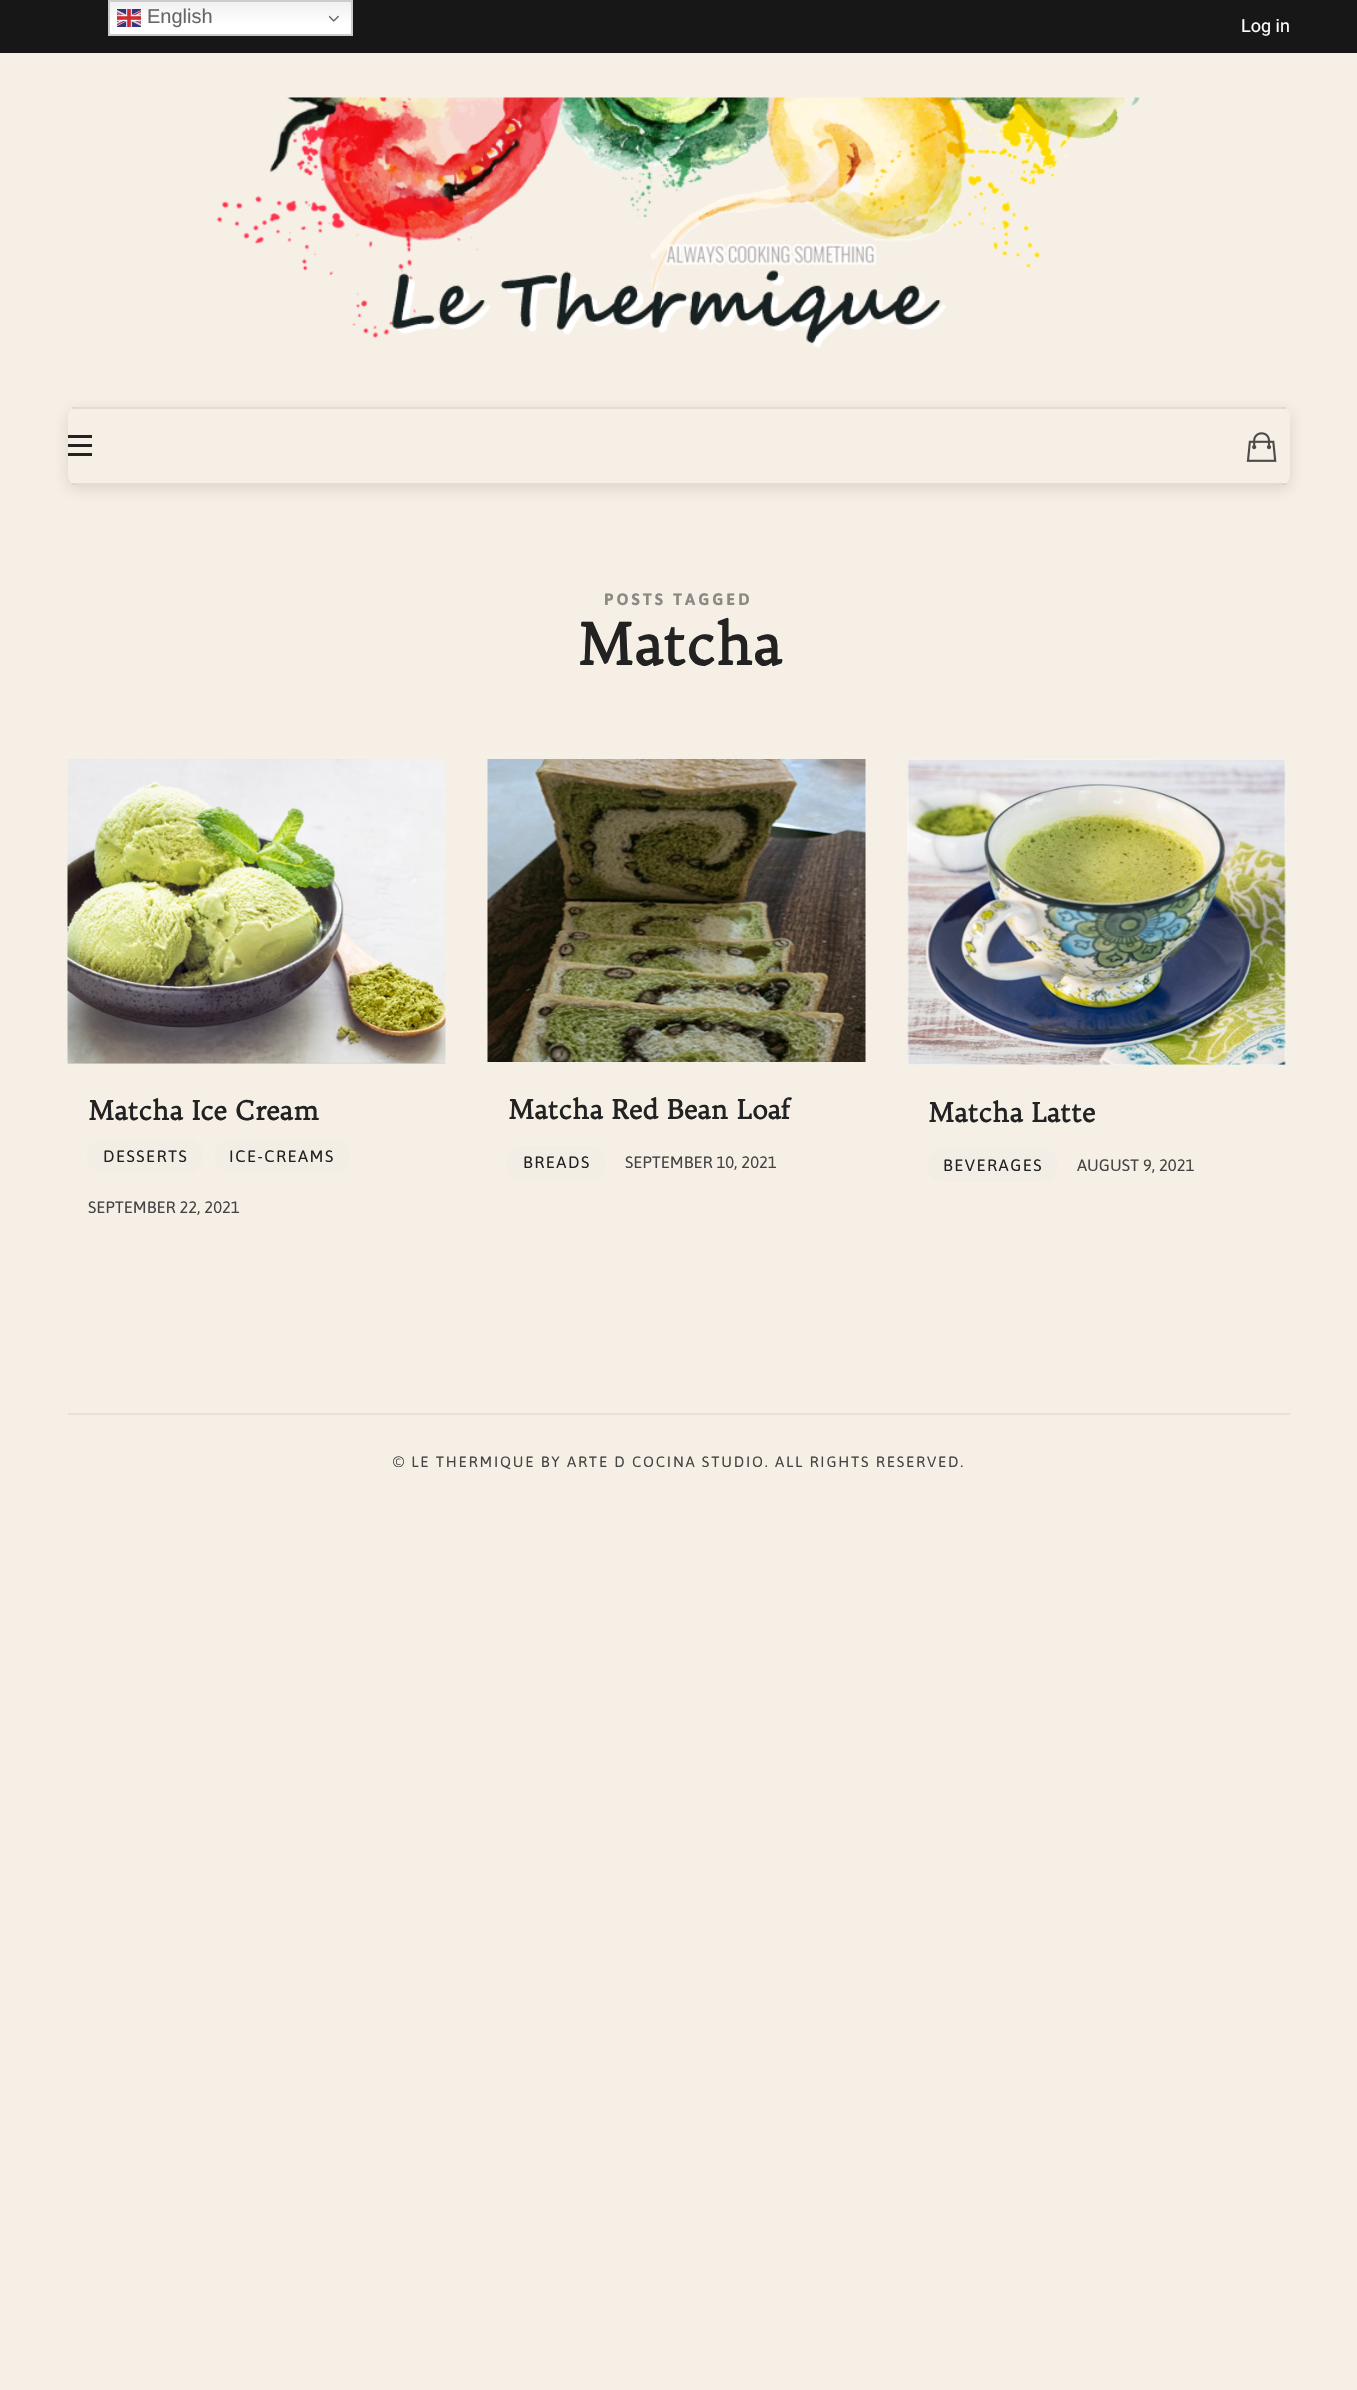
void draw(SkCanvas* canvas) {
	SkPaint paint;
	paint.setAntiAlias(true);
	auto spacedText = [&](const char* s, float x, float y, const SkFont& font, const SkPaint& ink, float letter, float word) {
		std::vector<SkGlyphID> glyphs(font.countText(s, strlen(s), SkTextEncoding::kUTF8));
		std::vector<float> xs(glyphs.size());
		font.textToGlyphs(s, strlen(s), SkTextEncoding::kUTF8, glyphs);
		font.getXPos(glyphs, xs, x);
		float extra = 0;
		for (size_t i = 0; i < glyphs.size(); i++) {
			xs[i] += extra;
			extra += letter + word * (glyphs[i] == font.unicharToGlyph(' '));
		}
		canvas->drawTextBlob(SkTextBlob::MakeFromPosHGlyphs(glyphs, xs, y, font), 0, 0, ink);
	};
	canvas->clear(0xfff6efe5);
	paint.setColor(0xff171717);
	canvas->drawRect(SkRect::MakeXYWH(0, 0, 1357, 53), paint);
	{
		const SkColor colors[] = {0xffefefef, 0xffffffff};
		const float stops[] = {0, 0.7};
		const SkPoint ends[] = {{230, 0}, {230, 36}};
		paint.setShader(SkGradientShader::MakeLinear(ends, colors, stops, 2, SkTileMode::kClamp));
		paint.setAlpha(255);
	}
	canvas->drawRect(SkRect::MakeXYWH(110, 2, 241, 32), paint);
	paint.setStroke(true);
	paint.setStrokeWidth(2);
	paint.setShader(nullptr);
	paint.setColor(0xffcccccc);
	canvas->drawRect(SkRect::MakeXYWH(109, 1, 243, 34), paint);
	canvas->drawImageRect(SkImages::DeferredFromEncodedData(SkData::MakeFromFileName("img1.png")), SkRect::MakeXYWH(117, 9, 24, 18), SkSamplingOptions());
	SkFont f1(fontMgr->matchFamilyStyle("Liberation Sans", SkFontStyle::Normal()), 20);
	f1.setSubpixel(true);
	paint.setStroke(false);
	paint.setColor(0xff666666);
	canvas->drawString("English", 147, 23, f1, paint);
	canvas->drawImageRect(SkImages::DeferredFromEncodedData(SkData::MakeFromFileName("img2.png")), SkRect::MakeXYWH(329, 15, 10, 7), SkSamplingOptions());
	SkFont f2(fontMgr->matchFamilyStyle("Roboto", SkFontStyle::Normal()), 18);
	f2.setSubpixel(true);
	paint.setColor(0xffffffff);
	canvas->drawString("Log in", 1241, 32, f2, paint);
	canvas->drawImageRect(SkImages::DeferredFromEncodedData(SkData::MakeFromFileName("img3.png")), SkRect::MakeXYWH(216, 97, 924, 251), SkSamplingOptions());
	paint.setColor(0x1f111111);
	paint.setMaskFilter(SkMaskFilter::MakeBlur(kNormal_SkBlurStyle, 7.5));
	canvas->drawRoundRect(SkRect::MakeXYWH(68, 411, 1222, 78), 9, 9, paint);
	paint.setMaskFilter(nullptr);
	paint.setColor(0xfff6efe5);
	canvas->drawRoundRect(SkRect::MakeXYWH(68, 407, 1222, 78), 9, 9, paint);
	paint.setColor(0x14000000);
	canvas->drawRect(SkRect::MakeXYWH(72, 407, 1214, 2), paint);
	canvas->drawRect(SkRect::MakeXYWH(72, 483, 1214, 2), paint);
	paint.setColor(0xff222222);
	canvas->drawRect(SkRect::MakeXYWH(68, 444, 24, 3), paint);
	canvas->drawRect(SkRect::MakeXYWH(68, 435, 24, 3), paint);
	canvas->drawRect(SkRect::MakeXYWH(68, 453, 24, 3), paint);
	canvas->drawImageRect(SkImages::DeferredFromEncodedData(SkData::MakeFromFileName("img4.png")), SkRect::MakeXYWH(1246, 432, 31, 30), SkSamplingOptions());
	SkFont f3(fontMgr->matchFamilyStyle("Asap", SkFontStyle::Bold()), 16.5);
	f3.setSubpixel(true);
	paint.setColor(0xff8c8984);
	spacedText("POSTS TAGGED", 604, 605, f3, paint, 3, 0);
	SkFont f4(fontMgr->matchFamilyStyle("Trykker", SkFontStyle::Bold()), 57);
	f4.setSubpixel(true);
	paint.setColor(0xff222222);
	canvas->drawString("Matcha", 577, 665, f4, paint);
	canvas->drawImageRect(SkImages::DeferredFromEncodedData(SkData::MakeFromFileName("img5.png")), SkRect::MakeXYWH(67, 759, 379, 305), SkSamplingOptions());
	SkFont f5(fontMgr->matchFamilyStyle("Trykker", SkFontStyle::Bold()), 26.4);
	f5.setSubpixel(true);
	canvas->drawString("Matcha Ice Cream", 88, 1120, f5, paint);
	paint.setColor(0xfff2ede5);
	canvas->drawRoundRect(SkRect::MakeXYWH(87, 1139, 116, 34), 17, 17, paint);
	SkFont f6(fontMgr->matchFamilyStyle("Asap", SkFontStyle::Normal()), 16.5);
	f6.setSubpixel(true);
	paint.setColor(0xff222222);
	spacedText("DESSERTS", 103, 1162, f6, paint, 1.5, 0);
	paint.setColor(0xfff2ede5);
	canvas->drawRoundRect(SkRect::MakeXYWH(215, 1139, 135, 34), 17, 17, paint);
	paint.setColor(0xff222222);
	spacedText("ICE-CREAMS", 229, 1162, f6, paint, 1.5, 0);
	paint.setColor(0xff444444);
	canvas->drawString("SEPTEMBER 22, 2021", 88, 1213, f6, paint);
	canvas->drawImageRect(SkImages::DeferredFromEncodedData(SkData::MakeFromFileName("img6.png")), SkRect::MakeXYWH(487, 759, 379, 303), SkSamplingOptions());
	paint.setColor(0xff222222);
	canvas->drawString("Matcha Red Bean Loaf", 508, 1119, f5, paint);
	paint.setColor(0xfff2ede5);
	canvas->drawRoundRect(SkRect::MakeXYWH(507, 1146, 99, 35), 17.5, 17.5, paint);
	paint.setColor(0xff222222);
	spacedText("BREADS", 523, 1168, f6, paint, 1.5, 0);
	paint.setColor(0xff444444);
	canvas->drawString("SEPTEMBER 10, 2021", 625, 1168, f6, paint);
	canvas->drawImageRect(SkImages::DeferredFromEncodedData(SkData::MakeFromFileName("img7.png")), SkRect::MakeXYWH(907, 759, 379, 306), SkSamplingOptions());
	paint.setColor(0xff222222);
	canvas->drawString("Matcha Latte", 928, 1122, f5, paint);
	paint.setColor(0xfff2ede5);
	canvas->drawRoundRect(SkRect::MakeXYWH(927, 1148, 131, 34), 17, 17, paint);
	paint.setColor(0xff222222);
	spacedText("BEVERAGES", 943, 1171, f6, paint, 1.5, 0);
	paint.setColor(0xff444444);
	canvas->drawString("AUGUST 9, 2021", 1077, 1171, f6, paint);
	paint.setColor(0xffe7e1d7);
	canvas->drawRect(SkRect::MakeXYWH(68, 1413, 1222, 2), paint);
	SkFont f7(fontMgr->matchFamilyStyle("Asap", SkFontStyle::Normal()), 15);
	f7.setSubpixel(true);
	paint.setColor(0xff444444);
	spacedText("© LE THERMIQUE BY ARTE D COCINA STUDIO. ALL RIGHTS RESERVED.", 393, 1467, f7, paint, 1.8, 0);
}
